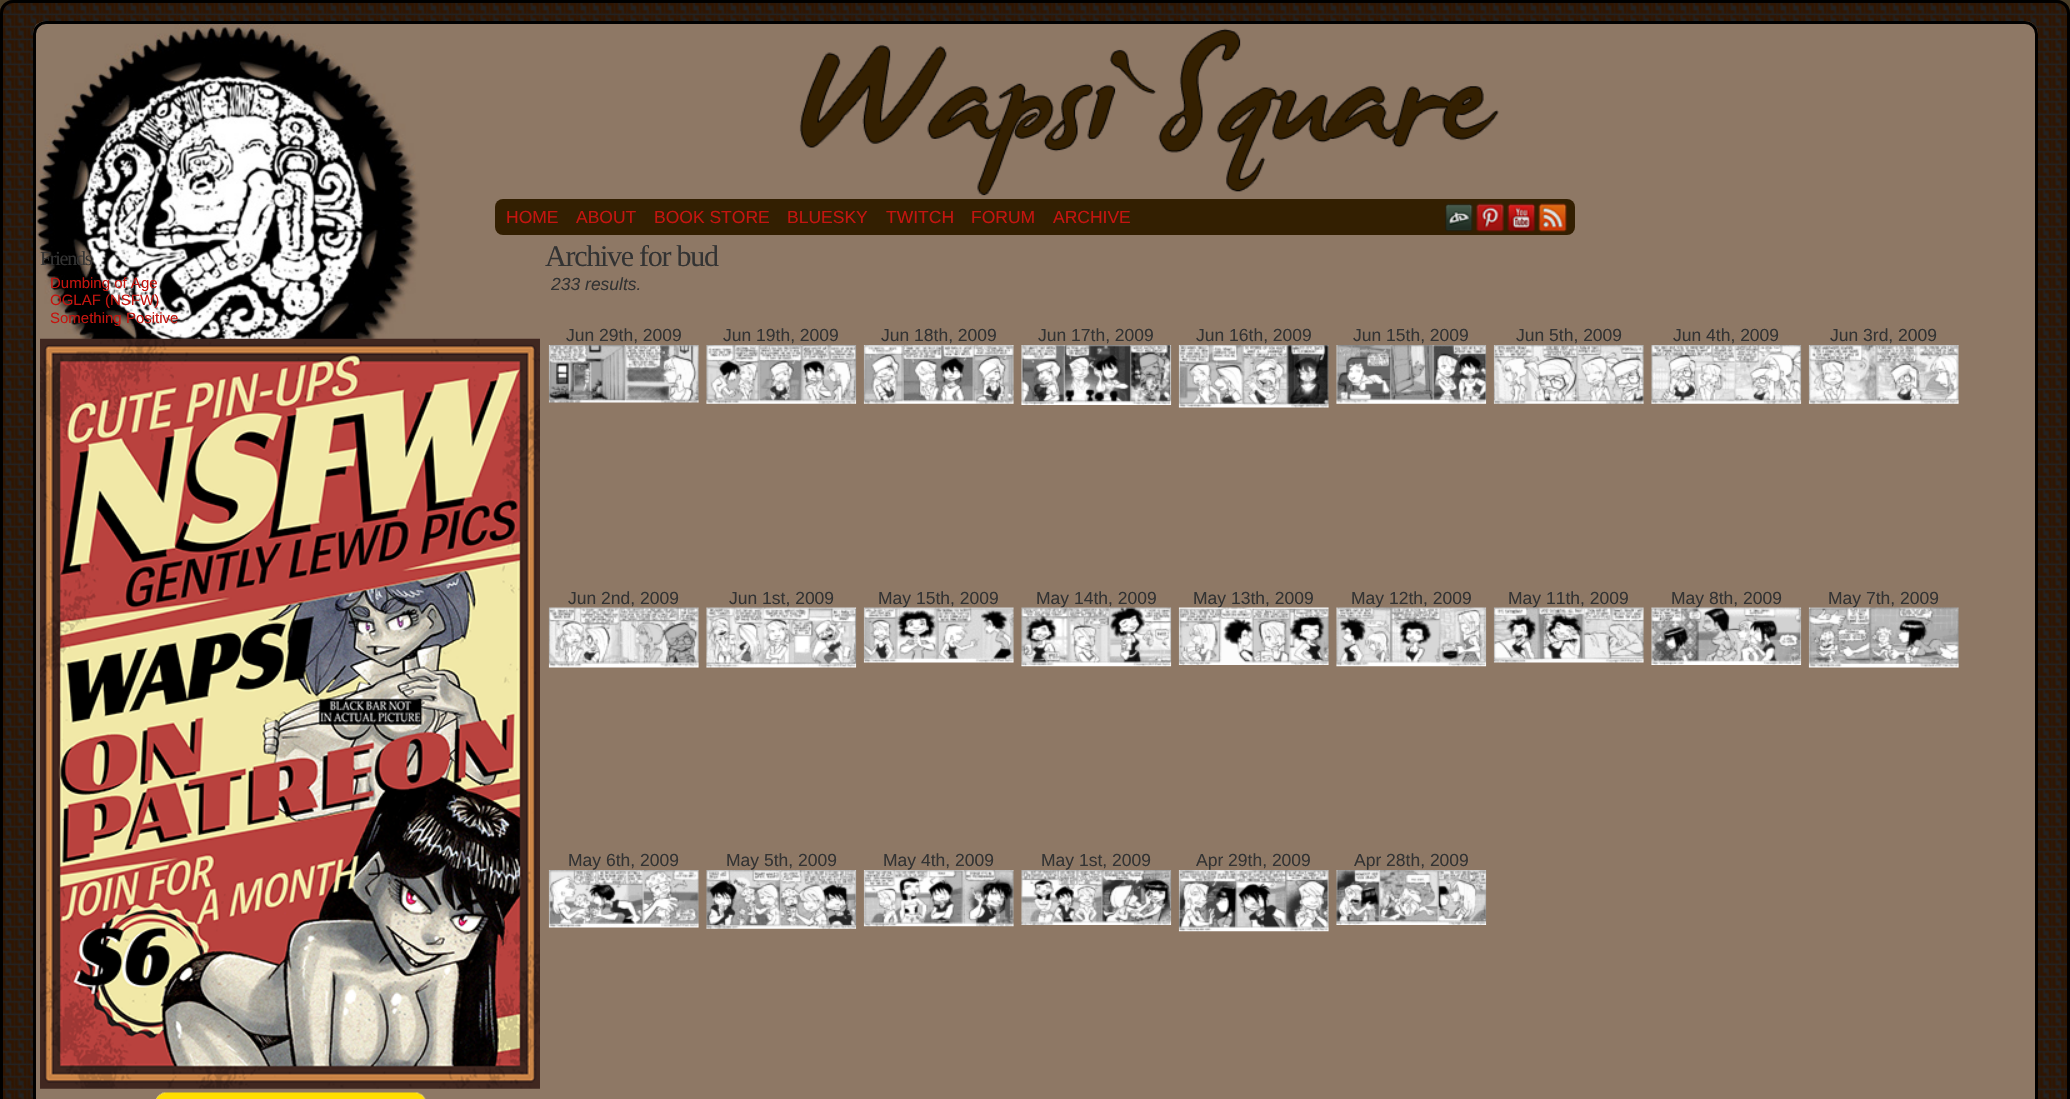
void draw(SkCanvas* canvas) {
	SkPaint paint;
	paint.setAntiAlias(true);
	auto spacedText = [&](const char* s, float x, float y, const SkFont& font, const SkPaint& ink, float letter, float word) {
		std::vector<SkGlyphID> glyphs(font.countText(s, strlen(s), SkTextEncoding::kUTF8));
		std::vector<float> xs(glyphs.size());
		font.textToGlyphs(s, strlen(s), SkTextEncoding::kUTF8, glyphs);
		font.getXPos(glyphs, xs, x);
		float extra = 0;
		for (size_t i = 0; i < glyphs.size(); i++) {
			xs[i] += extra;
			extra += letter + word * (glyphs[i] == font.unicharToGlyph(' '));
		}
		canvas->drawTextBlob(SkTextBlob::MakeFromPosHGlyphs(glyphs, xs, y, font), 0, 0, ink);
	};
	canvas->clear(0xffffffff);
	canvas->drawImageRect(SkImages::DeferredFromEncodedData(SkData::MakeFromFileName("img1.png")), SkRect::MakeXYWH(0, 0, 2070, 13), SkSamplingOptions());
	paint.setColor(0xff222222);
	canvas->drawRoundRect(SkRect::MakeXYWH(0, 0, 2070, 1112), 13, 13, paint);
	canvas->drawImageRect(SkImages::DeferredFromEncodedData(SkData::MakeFromFileName("img2.png")), SkRect::MakeXYWH(0, 0, 2070, 1099), SkSamplingOptions());
	paint.setStroke(true);
	paint.setStrokeWidth(3);
	paint.setColor(0xff000000);
	canvas->drawRoundRect(SkRect::MakeXYWH(1.5, 1.5, 2067, 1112), 11.5, 11.5, paint);
	paint.setStroke(false);
	paint.setColor(0xff8e7865);
	canvas->drawRoundRect(SkRect::MakeXYWH(33, 21, 2005, 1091), 13, 13, paint);
	canvas->drawImageRect(SkImages::DeferredFromEncodedData(SkData::MakeFromFileName("img3.png")), SkRect::MakeXYWH(35, 23, 385, 389), SkSamplingOptions());
	paint.setStroke(true);
	paint.setColor(0xff000000);
	canvas->drawRoundRect(SkRect::MakeXYWH(34.5, 22.5, 2002, 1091), 11.5, 11.5, paint);
	canvas->drawImageRect(SkImages::DeferredFromEncodedData(SkData::MakeFromFileName("img4.png")), SkRect::MakeXYWH(799, 28, 700, 168), SkSamplingOptions());
	paint.setStroke(false);
	paint.setColor(0xff331f01);
	canvas->drawRoundRect(SkRect::MakeXYWH(495, 199, 1080, 36), 8, 8, paint);
	SkFont f1(fontMgr->matchFamilyStyle("Liberation Sans", SkFontStyle::Normal()), 17.5);
	f1.setSubpixel(true);
	paint.setColor(0xffc4150f);
	canvas->drawString("HOME", 506, 223, f1, paint);
	canvas->drawString("ABOUT", 576, 223, f1, paint);
	canvas->drawString("BOOK STORE", 654, 223, f1, paint);
	canvas->drawString("BLUESKY", 787, 223, f1, paint);
	canvas->drawString("TWITCH", 886, 223, f1, paint);
	canvas->drawString("FORUM", 971, 223, f1, paint);
	canvas->drawString("ARCHIVE", 1053, 223, f1, paint);
	canvas->drawImageRect(SkImages::DeferredFromEncodedData(SkData::MakeFromFileName("img5.png")), SkRect::MakeXYWH(1445, 203, 28, 29), SkSamplingOptions());
	canvas->drawImageRect(SkImages::DeferredFromEncodedData(SkData::MakeFromFileName("img6.png")), SkRect::MakeXYWH(1476, 203, 28, 29), SkSamplingOptions());
	canvas->drawImageRect(SkImages::DeferredFromEncodedData(SkData::MakeFromFileName("img7.png")), SkRect::MakeXYWH(1507, 203, 29, 29), SkSamplingOptions());
	canvas->drawImageRect(SkImages::DeferredFromEncodedData(SkData::MakeFromFileName("img8.png")), SkRect::MakeXYWH(1538, 203, 29, 29), SkSamplingOptions());
	SkFont f2(fontMgr->matchFamilyStyle("Liberation Serif", SkFontStyle::Normal()), 20);
	f2.setSubpixel(true);
	paint.setColor(0xff333333);
	spacedText("Friends", 40, 265, f2, paint, -1.25, 0);
	SkFont f3(fontMgr->matchFamilyStyle("Liberation Sans", SkFontStyle::Normal()), 15);
	f3.setSubpixel(true);
	paint.setColor(0xffc4150f);
	canvas->drawString("Dumbing of Age", 50, 288, f3, paint);
	canvas->drawString("OGLAF (NSFW)", 50, 305, f3, paint);
	canvas->drawString("Something Positive", 50, 323, f3, paint);
	canvas->drawImageRect(SkImages::DeferredFromEncodedData(SkData::MakeFromFileName("img9.png")), SkRect::MakeXYWH(40, 338, 500, 751), SkSamplingOptions());
	canvas->drawImageRect(SkImages::DeferredFromEncodedData(SkData::MakeFromFileName("img10.png")), SkRect::MakeXYWH(156, 1092, 270, 7), SkSamplingOptions());
	SkFont f4(fontMgr->matchFamilyStyle("Liberation Serif", SkFontStyle::Normal()), 30);
	f4.setSubpixel(true);
	paint.setColor(0xff333333);
	spacedText("Archive for bud", 545, 266, f4, paint, -1.25, 0);
	SkFont f5(fontMgr->matchFamilyStyle("Liberation Sans", SkFontStyle::Italic()), 17.5);
	f5.setSubpixel(true);
	canvas->drawString("233 results.", 551, 290, f5, paint);
	canvas->drawString("Jun 29th, 2009", 566, 341, f1, paint);
	canvas->drawImageRect(SkImages::DeferredFromEncodedData(SkData::MakeFromFileName("img11.png")), SkRect::MakeXYWH(548, 345, 151, 58), SkSamplingOptions());
	canvas->drawString("Jun 19th, 2009", 723, 341, f1, paint);
	canvas->drawImageRect(SkImages::DeferredFromEncodedData(SkData::MakeFromFileName("img12.png")), SkRect::MakeXYWH(706, 345, 151, 59), SkSamplingOptions());
	canvas->drawString("Jun 18th, 2009", 881, 341, f1, paint);
	canvas->drawImageRect(SkImages::DeferredFromEncodedData(SkData::MakeFromFileName("img13.png")), SkRect::MakeXYWH(863, 345, 151, 59), SkSamplingOptions());
	canvas->drawString("Jun 17th, 2009", 1038, 341, f1, paint);
	canvas->drawImageRect(SkImages::DeferredFromEncodedData(SkData::MakeFromFileName("img14.png")), SkRect::MakeXYWH(1021, 345, 151, 60), SkSamplingOptions());
	canvas->drawString("Jun 16th, 2009", 1196, 341, f1, paint);
	canvas->drawImageRect(SkImages::DeferredFromEncodedData(SkData::MakeFromFileName("img15.png")), SkRect::MakeXYWH(1178, 345, 151, 63), SkSamplingOptions());
	canvas->drawString("Jun 15th, 2009", 1353, 341, f1, paint);
	canvas->drawImageRect(SkImages::DeferredFromEncodedData(SkData::MakeFromFileName("img16.png")), SkRect::MakeXYWH(1336, 345, 151, 59), SkSamplingOptions());
	canvas->drawString("Jun 5th, 2009", 1516, 341, f1, paint);
	canvas->drawImageRect(SkImages::DeferredFromEncodedData(SkData::MakeFromFileName("img17.png")), SkRect::MakeXYWH(1493, 345, 151, 59), SkSamplingOptions());
	canvas->drawString("Jun 4th, 2009", 1673, 341, f1, paint);
	canvas->drawImageRect(SkImages::DeferredFromEncodedData(SkData::MakeFromFileName("img18.png")), SkRect::MakeXYWH(1651, 345, 151, 59), SkSamplingOptions());
	canvas->drawString("Jun 3rd, 2009", 1830, 341, f1, paint);
	canvas->drawImageRect(SkImages::DeferredFromEncodedData(SkData::MakeFromFileName("img19.png")), SkRect::MakeXYWH(1808, 345, 151, 59), SkSamplingOptions());
	canvas->drawString("Jun 2nd, 2009", 568, 604, f1, paint);
	canvas->drawImageRect(SkImages::DeferredFromEncodedData(SkData::MakeFromFileName("img20.png")), SkRect::MakeXYWH(548, 607, 151, 61), SkSamplingOptions());
	canvas->drawString("Jun 1st, 2009", 729, 604, f1, paint);
	canvas->drawImageRect(SkImages::DeferredFromEncodedData(SkData::MakeFromFileName("img21.png")), SkRect::MakeXYWH(706, 607, 151, 61), SkSamplingOptions());
	canvas->drawString("May 15th, 2009", 878, 604, f1, paint);
	canvas->drawImageRect(SkImages::DeferredFromEncodedData(SkData::MakeFromFileName("img22.png")), SkRect::MakeXYWH(863, 607, 151, 56), SkSamplingOptions());
	canvas->drawString("May 14th, 2009", 1036, 604, f1, paint);
	canvas->drawImageRect(SkImages::DeferredFromEncodedData(SkData::MakeFromFileName("img23.png")), SkRect::MakeXYWH(1021, 607, 151, 60), SkSamplingOptions());
	canvas->drawString("May 13th, 2009", 1193, 604, f1, paint);
	canvas->drawImageRect(SkImages::DeferredFromEncodedData(SkData::MakeFromFileName("img24.png")), SkRect::MakeXYWH(1178, 607, 151, 58), SkSamplingOptions());
	canvas->drawString("May 12th, 2009", 1351, 604, f1, paint);
	canvas->drawImageRect(SkImages::DeferredFromEncodedData(SkData::MakeFromFileName("img25.png")), SkRect::MakeXYWH(1336, 607, 151, 60), SkSamplingOptions());
	canvas->drawString("May 11th, 2009", 1508, 604, f1, paint);
	canvas->drawImageRect(SkImages::DeferredFromEncodedData(SkData::MakeFromFileName("img26.png")), SkRect::MakeXYWH(1493, 607, 151, 56), SkSamplingOptions());
	canvas->drawString("May 8th, 2009", 1671, 604, f1, paint);
	canvas->drawImageRect(SkImages::DeferredFromEncodedData(SkData::MakeFromFileName("img27.png")), SkRect::MakeXYWH(1651, 607, 151, 58), SkSamplingOptions());
	canvas->drawString("May 7th, 2009", 1828, 604, f1, paint);
	canvas->drawImageRect(SkImages::DeferredFromEncodedData(SkData::MakeFromFileName("img28.png")), SkRect::MakeXYWH(1808, 607, 151, 61), SkSamplingOptions());
	canvas->drawString("May 6th, 2009", 568, 866, f1, paint);
	canvas->drawImageRect(SkImages::DeferredFromEncodedData(SkData::MakeFromFileName("img29.png")), SkRect::MakeXYWH(548, 870, 151, 58), SkSamplingOptions());
	canvas->drawString("May 5th, 2009", 726, 866, f1, paint);
	canvas->drawImageRect(SkImages::DeferredFromEncodedData(SkData::MakeFromFileName("img30.png")), SkRect::MakeXYWH(706, 870, 151, 59), SkSamplingOptions());
	canvas->drawString("May 4th, 2009", 883, 866, f1, paint);
	canvas->drawImageRect(SkImages::DeferredFromEncodedData(SkData::MakeFromFileName("img31.png")), SkRect::MakeXYWH(863, 870, 151, 57), SkSamplingOptions());
	canvas->drawString("May 1st, 2009", 1041, 866, f1, paint);
	canvas->drawImageRect(SkImages::DeferredFromEncodedData(SkData::MakeFromFileName("img32.png")), SkRect::MakeXYWH(1021, 870, 151, 55), SkSamplingOptions());
	canvas->drawString("Apr 29th, 2009", 1196, 866, f1, paint);
	canvas->drawImageRect(SkImages::DeferredFromEncodedData(SkData::MakeFromFileName("img33.png")), SkRect::MakeXYWH(1178, 870, 151, 62), SkSamplingOptions());
	canvas->drawString("Apr 28th, 2009", 1354, 866, f1, paint);
	canvas->drawImageRect(SkImages::DeferredFromEncodedData(SkData::MakeFromFileName("img34.png")), SkRect::MakeXYWH(1336, 870, 151, 55), SkSamplingOptions());
}
